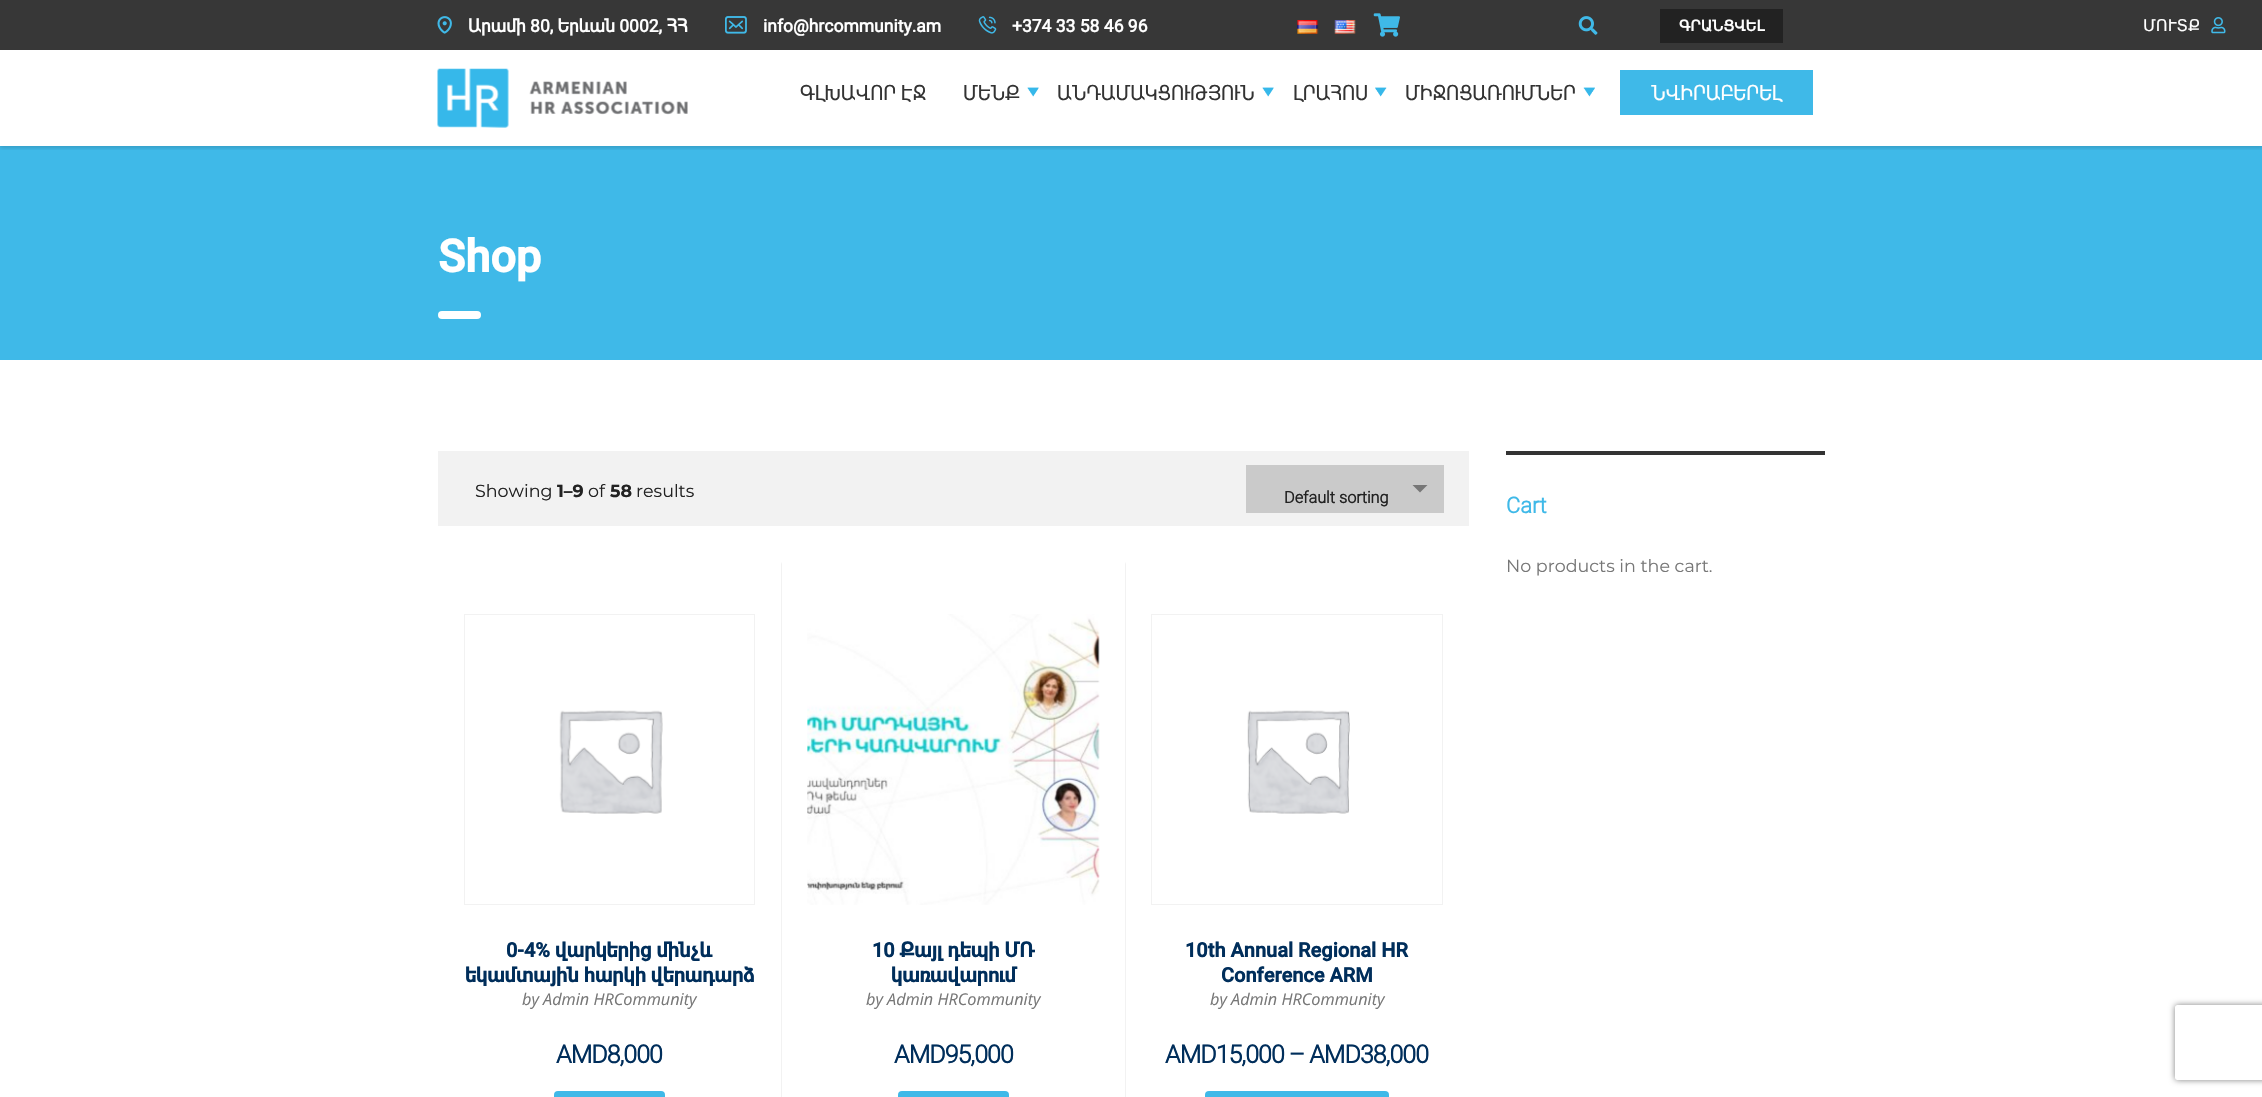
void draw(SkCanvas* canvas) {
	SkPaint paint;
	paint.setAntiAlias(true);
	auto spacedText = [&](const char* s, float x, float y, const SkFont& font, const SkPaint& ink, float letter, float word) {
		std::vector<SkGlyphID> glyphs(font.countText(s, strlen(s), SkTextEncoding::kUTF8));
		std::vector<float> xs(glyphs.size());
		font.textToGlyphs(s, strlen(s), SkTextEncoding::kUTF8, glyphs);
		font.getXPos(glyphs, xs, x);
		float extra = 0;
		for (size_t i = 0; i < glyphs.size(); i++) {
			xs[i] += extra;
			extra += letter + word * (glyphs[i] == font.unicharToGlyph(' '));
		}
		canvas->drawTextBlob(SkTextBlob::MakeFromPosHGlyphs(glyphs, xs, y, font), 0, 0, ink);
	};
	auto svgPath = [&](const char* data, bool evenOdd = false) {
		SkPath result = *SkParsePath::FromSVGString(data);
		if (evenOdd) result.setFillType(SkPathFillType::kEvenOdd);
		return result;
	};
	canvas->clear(0xffffffff);
	paint.setColor(0xff3fb9e8);
	canvas->drawRect(SkRect::MakeXYWH(0, 146, 2262, 214), paint);
	canvas->save();
	canvas->clipRect(SkRect::MakeXYWH(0, 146, 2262, 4));
	paint.setColor(0x26000000);
	paint.setMaskFilter(SkMaskFilter::MakeBlur(kNormal_SkBlurStyle, 2));
	canvas->drawRect(SkRect::MakeXYWH(0, 1, 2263, 147), paint);
	paint.setMaskFilter(nullptr);
	canvas->restore();
	paint.setColor(0xff373737);
	canvas->drawRect(SkRect::MakeXYWH(0, 0, 2262, 50), paint);
	canvas->drawImageRect(SkImages::DeferredFromEncodedData(SkData::MakeFromFileName("img1.png")), SkRect::MakeXYWH(437, 16, 15, 18), SkSamplingOptions());
	SkFont f1(fontMgr->matchFamilyStyle("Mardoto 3", SkFontStyle::Bold()), 17.5);
	f1.setSubpixel(true);
	paint.setColor(0xffffffff);
	canvas->drawString("Արամի 80, Երևան 0002, ՀՀ", 468, 32, f1, paint);
	canvas->drawImageRect(SkImages::DeferredFromEncodedData(SkData::MakeFromFileName("img2.png")), SkRect::MakeXYWH(725, 16, 22, 18), SkSamplingOptions());
	canvas->drawString("info@hrcommunity.am", 763, 32, f1, paint);
	canvas->drawImageRect(SkImages::DeferredFromEncodedData(SkData::MakeFromFileName("img3.png")), SkRect::MakeXYWH(978, 16, 19, 18), SkSamplingOptions());
	canvas->drawString("+374 33 58 46 96", 1012, 32, f1, paint);
	canvas->drawImageRect(SkImages::DeferredFromEncodedData(SkData::MakeFromFileName("img4.png")), SkRect::MakeXYWH(1297, 20, 22, 14), SkSamplingOptions());
	canvas->drawImageRect(SkImages::DeferredFromEncodedData(SkData::MakeFromFileName("img5.png")), SkRect::MakeXYWH(1334, 20, 22, 14), SkSamplingOptions());
	canvas->drawImageRect(SkImages::DeferredFromEncodedData(SkData::MakeFromFileName("img6.png")), SkRect::MakeXYWH(1373, 13, 27, 24), SkSamplingOptions());
	canvas->drawImageRect(SkImages::DeferredFromEncodedData(SkData::MakeFromFileName("img7.png")), SkRect::MakeXYWH(1578, 16, 20, 19), SkSamplingOptions());
	paint.setColor(0xff222222);
	canvas->drawRect(SkRect::MakeXYWH(1660, 9, 123, 34), paint);
	SkFont f2(fontMgr->matchFamilyStyle("DejaVu Sans", SkFontStyle::Bold()), 15);
	f2.setSubpixel(true);
	paint.setColor(0xffffffff);
	canvas->drawString("ԳՐԱՆՑՎԵԼ", 1679, 31, f2, paint);
	canvas->drawImageRect(SkImages::DeferredFromEncodedData(SkData::MakeFromFileName("img8.png")), SkRect::MakeXYWH(437, 68, 251, 60), SkSamplingOptions());
	SkFont f3(fontMgr->matchFamilyStyle("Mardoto", SkFontStyle::Normal()), 20);
	f3.setSubpixel(true);
	paint.setColor(0xff333333);
	spacedText("ԳԼԽԱՎՈՐ ԷՋ", 800, 100, f3, paint, -0.25, 0);
	canvas->drawImageRect(SkImages::DeferredFromEncodedData(SkData::MakeFromFileName("img9.png")), SkRect::MakeXYWH(1027, 87, 12, 10), SkSamplingOptions());
	spacedText("ՄԵՆՔ", 963, 100, f3, paint, -0.25, 0);
	canvas->drawImageRect(SkImages::DeferredFromEncodedData(SkData::MakeFromFileName("img9.png")), SkRect::MakeXYWH(1262, 87, 12, 10), SkSamplingOptions());
	spacedText("ԱՆԴԱՄԱԿՑՈՒԹՅՈՒՆ", 1057, 100, f3, paint, -0.25, 0);
	canvas->drawImageRect(SkImages::DeferredFromEncodedData(SkData::MakeFromFileName("img10.png")), SkRect::MakeXYWH(1375, 87, 12, 10), SkSamplingOptions());
	spacedText("ԼՐԱՀՈՍ", 1293, 100, f3, paint, -0.25, 0);
	canvas->drawImageRect(SkImages::DeferredFromEncodedData(SkData::MakeFromFileName("img11.png")), SkRect::MakeXYWH(1583, 87, 12, 10), SkSamplingOptions());
	spacedText("ՄԻՋՈՑԱՌՈՒՄՆԵՐ", 1405, 100, f3, paint, -0.25, 0);
	paint.setColor(0xff3fb9e8);
	canvas->drawRect(SkRect::MakeXYWH(1620, 70, 193, 45), paint);
	paint.setColor(0xffffffff);
	spacedText("ՆՎԻՐԱԲԵՐԵԼ", 1651, 100, f3, paint, -0.25, 0);
	SkFont f4(fontMgr->matchFamilyStyle("DejaVu Sans", SkFontStyle::Normal()), 16.25);
	f4.setSubpixel(true);
	canvas->drawString("ՄՈՒՏՔ", 2143, 31, f4, paint);
	canvas->drawImageRect(SkImages::DeferredFromEncodedData(SkData::MakeFromFileName("img12.png")), SkRect::MakeXYWH(2211, 17, 15, 17), SkSamplingOptions());
	SkFont f5(fontMgr->matchFamilyStyle("Mardoto", SkFontStyle::Bold()), 45);
	f5.setSubpixel(true);
	canvas->drawString("Shop", 438, 272, f5, paint);
	canvas->drawRoundRect(SkRect::MakeXYWH(438, 311, 43, 8), 4, 4, paint);
	paint.setColor(0xfff2f2f2);
	canvas->drawRect(SkRect::MakeXYWH(438, 451, 1031, 75), paint);
	SkFont f6(fontMgr->matchFamilyStyle("Montserrat", SkFontStyle::Normal()), 17.5);
	f6.setSubpixel(true);
	paint.setColor(0xff222222);
	canvas->drawString("Showing", 475, 497, f6, paint);
	SkFont f7(fontMgr->matchFamilyStyle("Montserrat", SkFontStyle::Bold()), 17.5);
	f7.setSubpixel(true);
	canvas->drawString("1–9", 557, 497, f7, paint);
	canvas->drawString("of", 588, 497, f6, paint);
	canvas->drawString("58", 610, 497, f7, paint);
	canvas->drawString("results", 636, 497, f6, paint);
	paint.setColor(0xffcacaca);
	canvas->drawRect(SkRect::MakeXYWH(1246, 465, 198, 48), paint);
	paint.setColor(0xff777777);
	canvas->drawPath(svgPath("M1412.5 485H1427.5L1420 492.5Z"), paint);
	SkFont f8(fontMgr->matchFamilyStyle("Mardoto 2", SkFontStyle::Bold()), 16.25);
	f8.setSubpixel(true);
	paint.setColor(0xff222222);
	canvas->drawString("Default sorting", 1284, 503, f8, paint);
	paint.setStroke(true);
	paint.setStrokeWidth(1);
	paint.setColor(0xfff2f2f2);
	canvas->drawRect(SkRect::MakeXYWH(464.5, 614.5, 290, 290), paint);
	canvas->drawImageRect(SkImages::DeferredFromEncodedData(SkData::MakeFromFileName("img13.png")), SkRect::MakeXYWH(559, 710, 104, 104), SkSamplingOptions());
	SkFont f9(fontMgr->matchFamilyStyle("Mardoto", SkFontStyle::Bold()), 20);
	f9.setSubpixel(true);
	paint.setStroke(false);
	paint.setColor(0xff002e5b);
	canvas->drawString("0-4% վարկերից մինչև", 506, 957, f9, paint);
	canvas->drawString("եկամտային հարկի վերադարձ", 465, 982, f9, paint);
	SkFont f10(fontMgr->matchFamilyStyle("Open Sans", SkFontStyle::Italic()), 16.25);
	f10.setSubpixel(true);
	paint.setColor(0xff777777);
	canvas->drawString("by Admin HRCommunity", 522, 1005, f10, paint);
	SkFont f11(fontMgr->matchFamilyStyle("Mardoto 2", SkFontStyle::Bold()), 25);
	f11.setSubpixel(true);
	paint.setColor(0xff002e5b);
	spacedText("AMD8,000", 556, 1063, f11, paint, -1, 0);
	paint.setColor(0xff3fb9e8);
	canvas->drawRoundRect(SkRect::MakeXYWH(554, 1091, 111, 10), 4, 4, paint);
	paint.setColor(0xfff2f2f2);
	canvas->drawPath(svgPath("M781 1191V562L782 564V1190Z"), paint);
	canvas->drawImageRect(SkImages::DeferredFromEncodedData(SkData::MakeFromFileName("img14.png")), SkRect::MakeXYWH(807, 614, 293, 291), SkSamplingOptions());
	paint.setColor(0xff002e5b);
	canvas->drawString("10 Քայլ դեպի ՄՌ", 872, 957, f9, paint);
	canvas->drawString("կառավարում", 891, 982, f9, paint);
	paint.setColor(0xff777777);
	canvas->drawString("by Admin HRCommunity", 866, 1005, f10, paint);
	paint.setColor(0xff002e5b);
	spacedText("AMD95,000", 894, 1063, f11, paint, -1, 0);
	paint.setColor(0xff3fb9e8);
	canvas->drawRoundRect(SkRect::MakeXYWH(898, 1091, 111, 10), 4, 4, paint);
	paint.setColor(0xfff2f2f2);
	canvas->drawPath(svgPath("M1125 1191V562L1126 564V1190Z"), paint);
	paint.setStroke(true);
	canvas->drawRect(SkRect::MakeXYWH(1151.5, 614.5, 291, 290), paint);
	canvas->drawImageRect(SkImages::DeferredFromEncodedData(SkData::MakeFromFileName("img15.png")), SkRect::MakeXYWH(1247, 710, 103, 104), SkSamplingOptions());
	paint.setStroke(false);
	paint.setColor(0xff002e5b);
	canvas->drawString("10th Annual Regional HR", 1185, 957, f9, paint);
	canvas->drawString("Conference ARM", 1221, 982, f9, paint);
	paint.setColor(0xff777777);
	canvas->drawString("by Admin HRCommunity", 1210, 1005, f10, paint);
	paint.setColor(0xff002e5b);
	spacedText("AMD15,000 – AMD38,000", 1165, 1063, f11, paint, -1, 0);
	paint.setColor(0xff3fb9e8);
	canvas->drawRoundRect(SkRect::MakeXYWH(1205, 1091, 184, 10), 4, 4, paint);
	paint.setColor(0xff333333);
	canvas->drawRect(SkRect::MakeXYWH(1506, 451, 319, 4), paint);
	SkFont f12(fontMgr->matchFamilyStyle("Mardoto 2", SkFontStyle::Bold()), 22);
	f12.setSubpixel(true);
	paint.setColor(0xff3fb9e8);
	canvas->drawString("Cart", 1506, 513, f12, paint);
	paint.setColor(0xff777777);
	canvas->drawString("No products in the cart.", 1506, 572, f6, paint);
	canvas->save();
	canvas->clipPath(svgPath("M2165 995H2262V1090H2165ZM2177.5 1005H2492.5C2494 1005 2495 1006 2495 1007.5V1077.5C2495 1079 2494 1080 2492.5 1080H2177.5C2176 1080 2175 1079 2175 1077.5V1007.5C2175 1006 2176 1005 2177.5 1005Z", true), true);
	paint.setColor(0xff808080);
	paint.setMaskFilter(SkMaskFilter::MakeBlur(kNormal_SkBlurStyle, 3));
	canvas->drawRoundRect(SkRect::MakeXYWH(2175, 1005, 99, 75), 2.5, 2.5, paint);
	paint.setMaskFilter(nullptr);
	canvas->restore();
}
